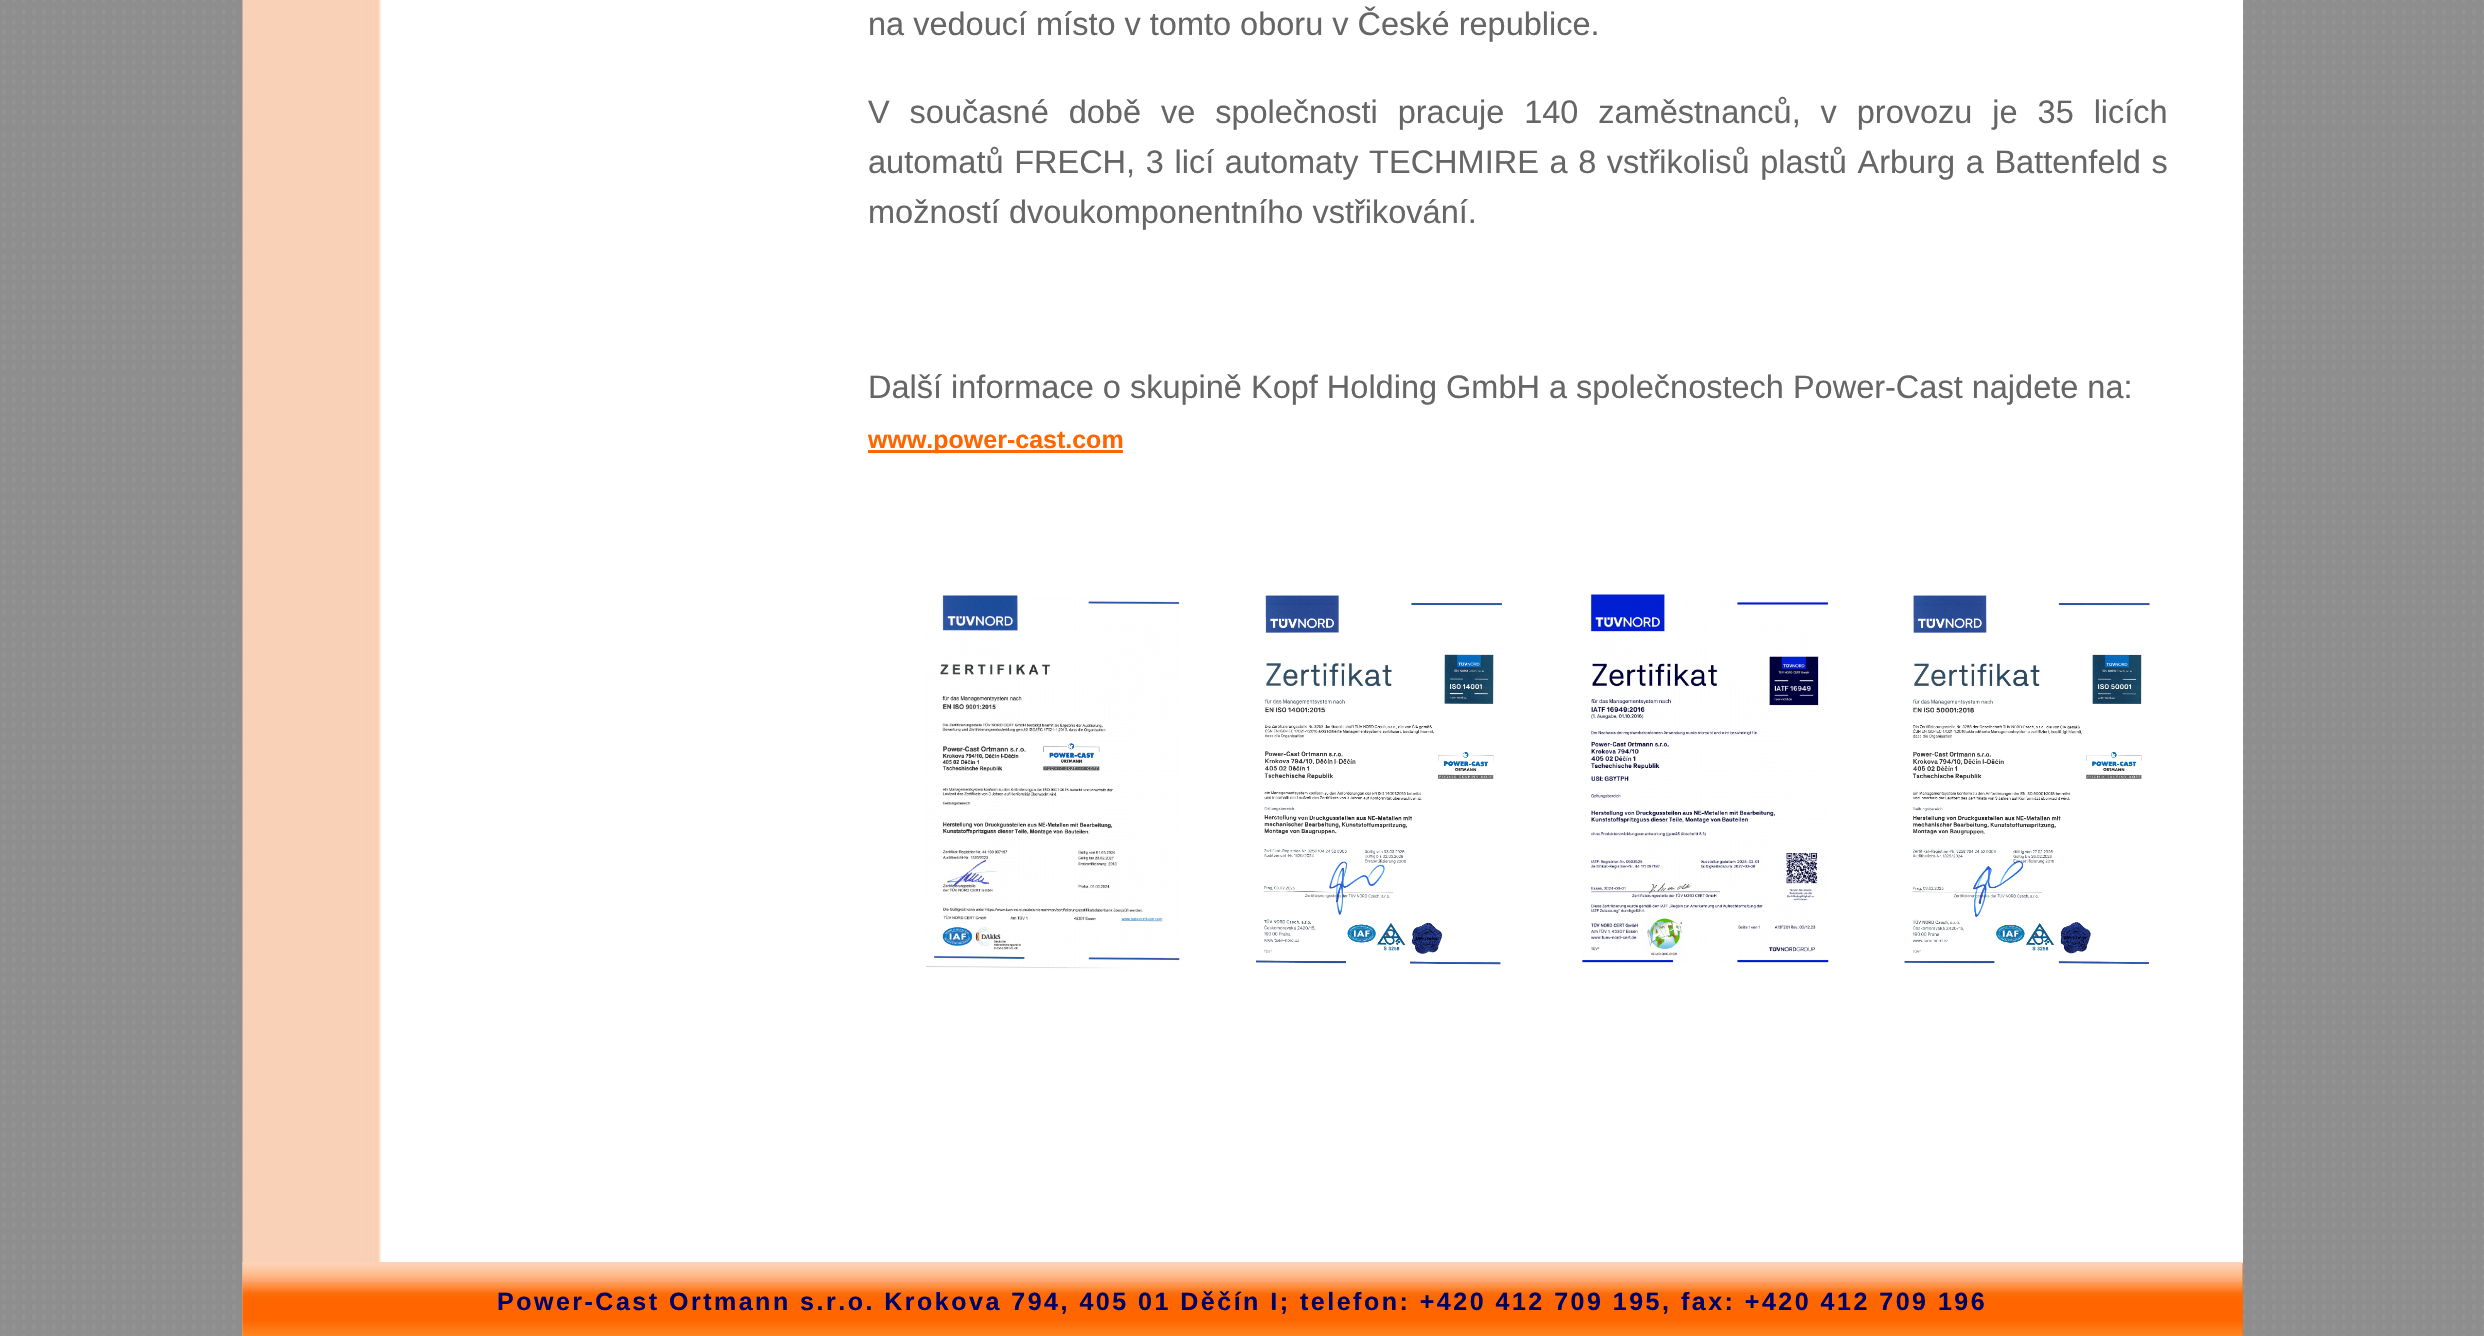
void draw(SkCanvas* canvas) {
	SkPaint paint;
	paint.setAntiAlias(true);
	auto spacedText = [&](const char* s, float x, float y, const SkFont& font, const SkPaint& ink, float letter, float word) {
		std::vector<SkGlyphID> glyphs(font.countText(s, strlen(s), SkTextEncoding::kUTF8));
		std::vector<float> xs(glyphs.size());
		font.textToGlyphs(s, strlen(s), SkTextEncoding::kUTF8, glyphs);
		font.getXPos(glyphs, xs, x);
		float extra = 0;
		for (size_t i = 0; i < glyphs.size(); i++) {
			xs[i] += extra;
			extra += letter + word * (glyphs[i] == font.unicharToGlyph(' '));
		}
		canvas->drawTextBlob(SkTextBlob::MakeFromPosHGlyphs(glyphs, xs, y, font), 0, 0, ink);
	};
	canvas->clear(0xffffffff);
	canvas->drawImageRect(SkImages::DeferredFromEncodedData(SkData::MakeFromFileName("img1.png")), SkRect::MakeXYWH(0, 0, 2484, 1336), SkSamplingOptions());
	paint.setColor(0xffffffff);
	canvas->drawRect(SkRect::MakeXYWH(382, 0, 1861, 1263), paint);
	canvas->drawImageRect(SkImages::DeferredFromEncodedData(SkData::MakeFromFileName("img2.png")), SkRect::MakeXYWH(242, 0, 140, 1336), SkSamplingOptions());
	SkFont f1(fontMgr->matchFamilyStyle("Liberation Sans", SkFontStyle::Normal()), 32.5);
	f1.setSubpixel(true);
	paint.setColor(0xff666666);
	canvas->drawString("na vedoucí místo v tomto oboru v České republice.", 868, 35, f1, paint);
	spacedText("V současné době ve společnosti pracuje 140 zaměstnanců, v provozu je 35 licích", 868, 123, f1, paint, 0, 10.9);
	spacedText("automatů FRECH, 3 licí automaty TECHMIRE a 8 vstřikolisů plastů Arburg a Battenfeld s", 868, 173, f1, paint, 0, 1.6);
	canvas->drawString("možností dvoukomponentního vstřikování.", 868, 223, f1, paint);
	canvas->drawString("Další informace o skupině Kopf Holding GmbH a společnostech Power-Cast najdete na:", 868, 398, f1, paint);
	paint.setColor(0xffff6600);
	canvas->drawRect(SkRect::MakeXYWH(868, 450, 255, 3), paint);
	SkFont f2(fontMgr->matchFamilyStyle("Liberation Sans", SkFontStyle::Bold()), 25);
	f2.setSubpixel(true);
	canvas->drawString("www.power-cast.com", 868, 448, f2, paint);
	canvas->drawImageRect(SkImages::DeferredFromEncodedData(SkData::MakeFromFileName("img3.png")), SkRect::MakeXYWH(925, 595, 255, 374), SkSamplingOptions());
	canvas->drawImageRect(SkImages::DeferredFromEncodedData(SkData::MakeFromFileName("img4.png")), SkRect::MakeXYWH(1256, 595, 246, 370), SkSamplingOptions());
	canvas->drawImageRect(SkImages::DeferredFromEncodedData(SkData::MakeFromFileName("img5.png")), SkRect::MakeXYWH(1582, 594, 247, 369), SkSamplingOptions());
	canvas->drawImageRect(SkImages::DeferredFromEncodedData(SkData::MakeFromFileName("img6.png")), SkRect::MakeXYWH(1897, 595, 253, 369), SkSamplingOptions());
	canvas->drawRect(SkRect::MakeXYWH(2242, 1263, 1, 73), paint);
	canvas->drawImageRect(SkImages::DeferredFromEncodedData(SkData::MakeFromFileName("img7.png")), SkRect::MakeXYWH(242, 1262, 2001, 74), SkSamplingOptions());
	paint.setColor(0xff000066);
	spacedText("Power-Cast Ortmann s.r.o. Krokova 794, 405 01 Děčín I; telefon: +420 412 709 195, fax: +420 412 709 196", 497, 1310, f2, paint, 2.5, 0);
}
